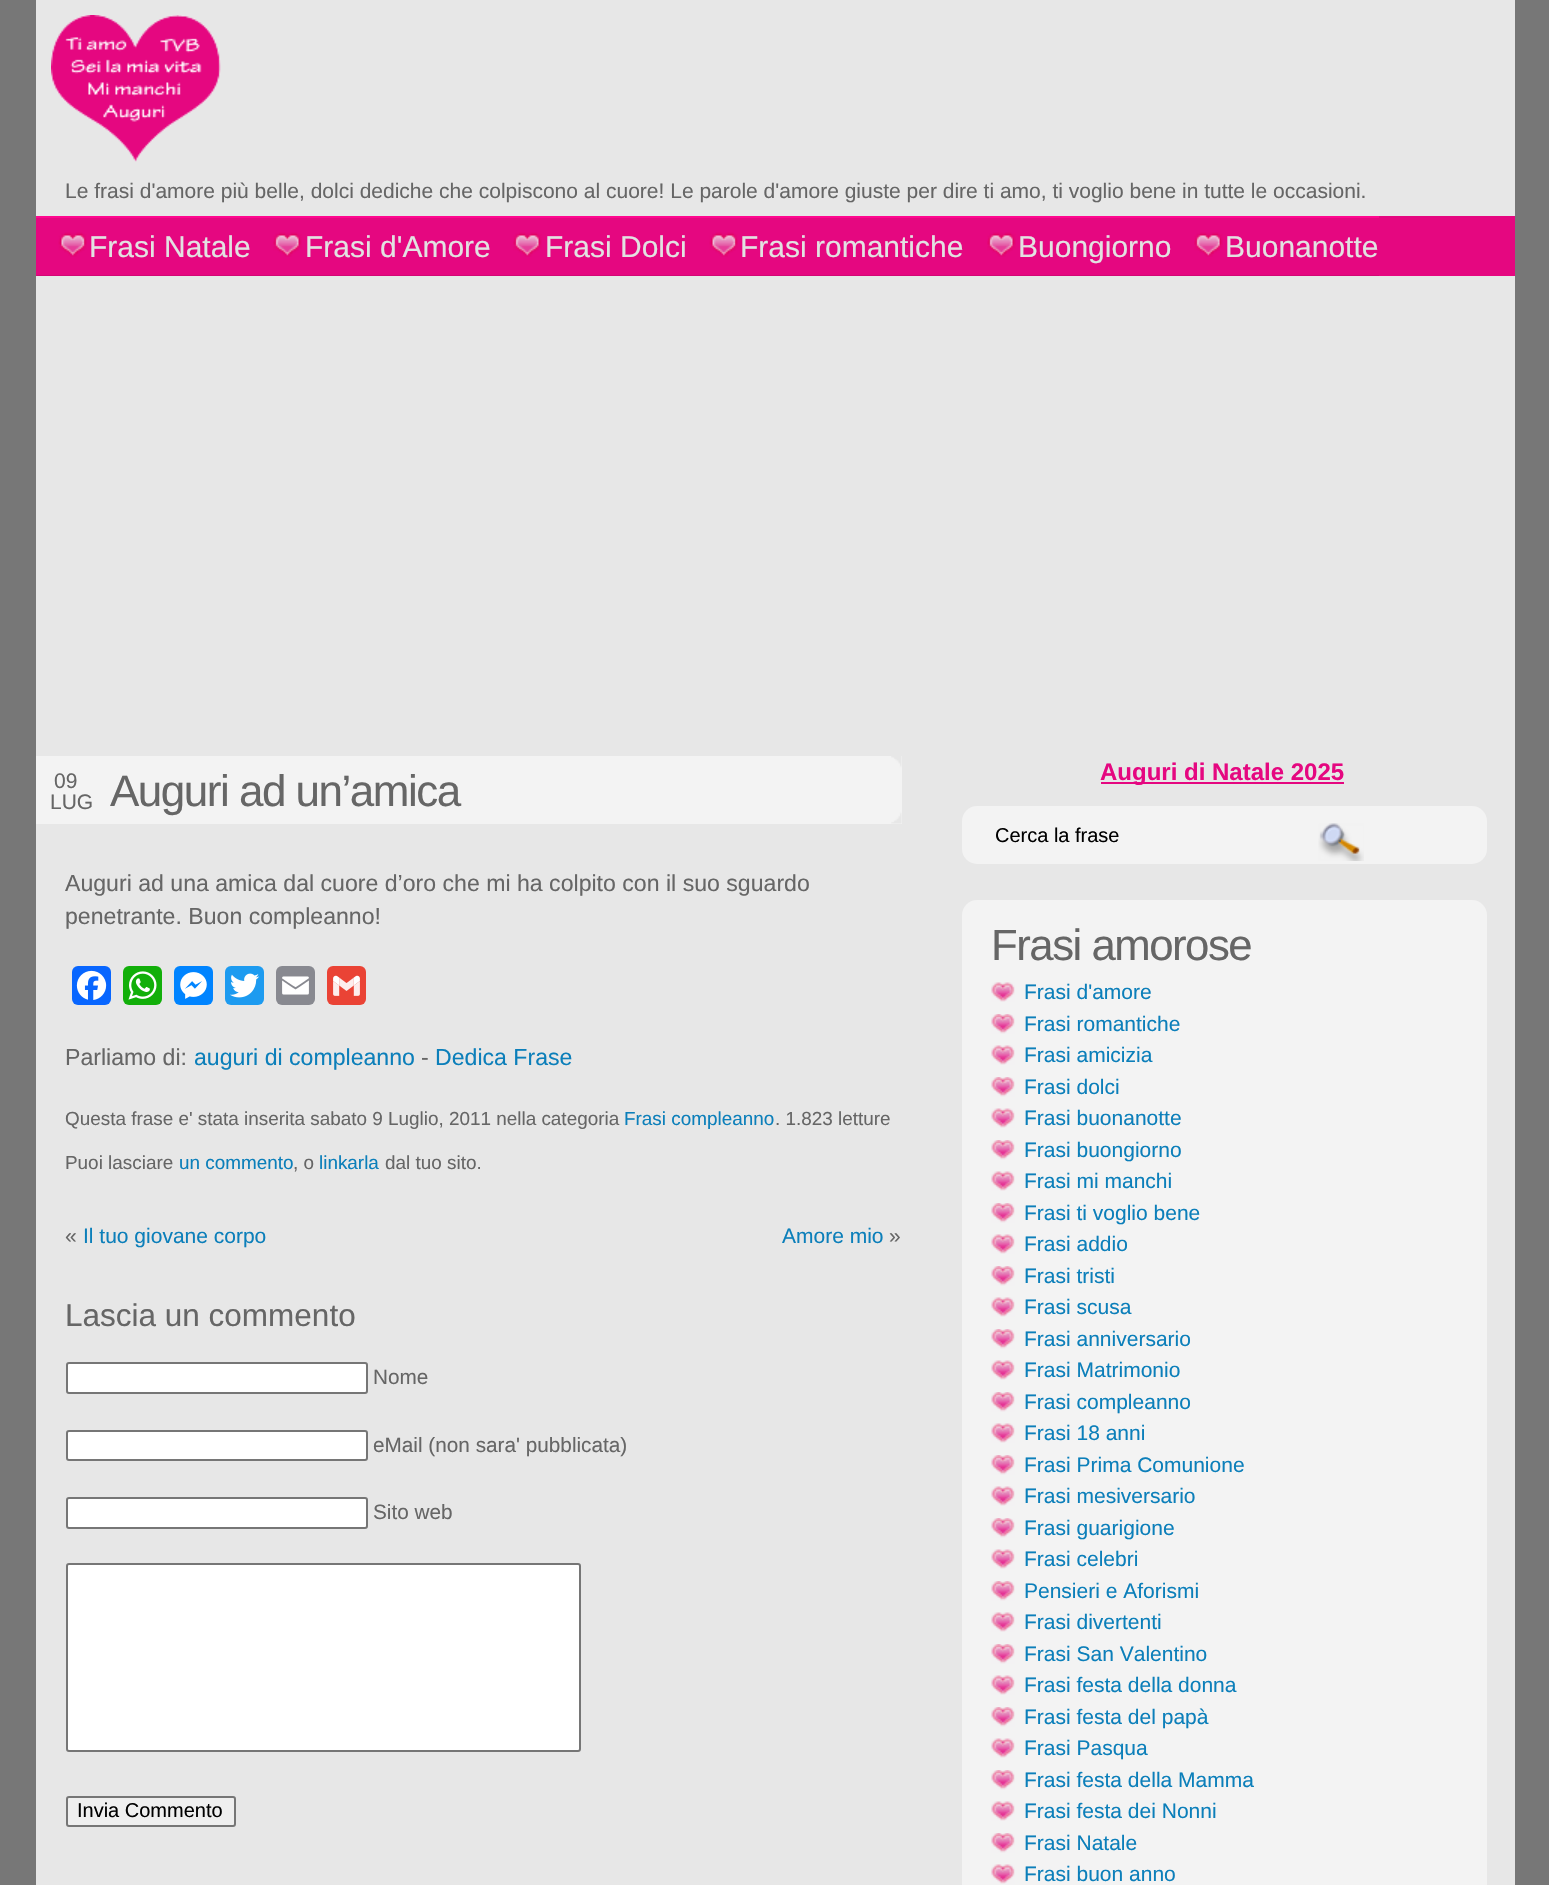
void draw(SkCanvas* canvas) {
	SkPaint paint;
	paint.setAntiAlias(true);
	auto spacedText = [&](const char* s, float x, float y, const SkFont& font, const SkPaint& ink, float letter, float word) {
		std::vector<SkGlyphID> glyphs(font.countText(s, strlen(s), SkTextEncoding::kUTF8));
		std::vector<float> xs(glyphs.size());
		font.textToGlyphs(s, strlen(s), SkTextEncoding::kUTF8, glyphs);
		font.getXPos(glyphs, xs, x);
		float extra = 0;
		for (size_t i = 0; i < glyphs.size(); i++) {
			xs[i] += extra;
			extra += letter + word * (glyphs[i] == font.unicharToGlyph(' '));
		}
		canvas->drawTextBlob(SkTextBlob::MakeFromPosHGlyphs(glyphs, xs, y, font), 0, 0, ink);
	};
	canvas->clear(0xff777777);
	paint.setColor(0xffe7e7e7);
	canvas->drawRect(SkRect::MakeXYWH(36, 0, 1479, 1885), paint);
	canvas->drawImageRect(SkImages::DeferredFromEncodedData(SkData::MakeFromFileName("img1.png")), SkRect::MakeXYWH(51, 15, 170, 147), SkSamplingOptions());
	SkFont f1(fontMgr->matchFamilyStyle("Liberation Sans", SkFontStyle::Normal()), 21);
	f1.setSubpixel(true);
	paint.setColor(0xff666666);
	canvas->drawString("Le frasi d'amore più belle, dolci dediche che colpiscono al cuore! Le parole d'amore giuste per dire ti amo, ti voglio bene in tutte le occasioni.", 65, 198, f1, paint);
	paint.setColor(0xffe50780);
	canvas->drawRect(SkRect::MakeXYWH(36, 216, 1479, 60), paint);
	paint.setColor(0xffff088f);
	canvas->drawRect(SkRect::MakeXYWH(36, 216, 1343, 2), paint);
	paint.setColor(0xffd20775);
	canvas->drawRect(SkRect::MakeXYWH(36, 275, 1343, 1), paint);
	canvas->drawImageRect(SkImages::DeferredFromEncodedData(SkData::MakeFromFileName("img2.png")), SkRect::MakeXYWH(58, 232, 29, 25), SkSamplingOptions());
	SkFont f2(fontMgr->matchFamilyStyle("Liberation Sans", SkFontStyle::Normal()), 30);
	f2.setSubpixel(true);
	paint.setColor(0xffe2e2e2);
	canvas->drawString("Frasi Natale", 89, 257, f2, paint);
	canvas->drawImageRect(SkImages::DeferredFromEncodedData(SkData::MakeFromFileName("img3.png")), SkRect::MakeXYWH(273, 232, 29, 25), SkSamplingOptions());
	canvas->drawString("Frasi d'Amore", 305, 257, f2, paint);
	canvas->drawImageRect(SkImages::DeferredFromEncodedData(SkData::MakeFromFileName("img4.png")), SkRect::MakeXYWH(513, 232, 29, 25), SkSamplingOptions());
	canvas->drawString("Frasi Dolci", 545, 257, f2, paint);
	canvas->drawImageRect(SkImages::DeferredFromEncodedData(SkData::MakeFromFileName("img5.png")), SkRect::MakeXYWH(709, 232, 29, 25), SkSamplingOptions());
	canvas->drawString("Frasi romantiche", 740, 257, f2, paint);
	canvas->drawImageRect(SkImages::DeferredFromEncodedData(SkData::MakeFromFileName("img6.png")), SkRect::MakeXYWH(987, 232, 29, 25), SkSamplingOptions());
	canvas->drawString("Buongiorno", 1018, 257, f2, paint);
	canvas->drawImageRect(SkImages::DeferredFromEncodedData(SkData::MakeFromFileName("img7.png")), SkRect::MakeXYWH(1194, 232, 29, 25), SkSamplingOptions());
	canvas->drawString("Buonanotte", 1225, 257, f2, paint);
	paint.setColor(0xfff3f3f3);
	canvas->drawRect(SkRect::MakeXYWH(36, 756, 866, 68), paint);
	paint.setColor(0xff666666);
	canvas->drawString("09", 54, 788, f1, paint);
	canvas->drawString("LUG", 50, 809, f1, paint);
	canvas->drawImageRect(SkImages::DeferredFromEncodedData(SkData::MakeFromFileName("img8.png")), SkRect::MakeXYWH(891, 756, 11, 68), SkSamplingOptions());
	SkFont f3(fontMgr->matchFamilyStyle("Liberation Sans", SkFontStyle::Normal()), 44);
	f3.setSubpixel(true);
	spacedText("Auguri ad un’amica", 110, 806, f3, paint, -1.5, 0);
	SkFont f4(fontMgr->matchFamilyStyle("Liberation Sans", SkFontStyle::Normal()), 23.1);
	f4.setSubpixel(true);
	canvas->drawString("Auguri ad una amica dal cuore d’oro che mi ha colpito con il suo sguardo", 65, 891, f4, paint);
	canvas->drawString("penetrante. Buon compleanno!", 65, 924, f4, paint);
	paint.setColor(0xff0866ff);
	canvas->drawRoundRect(SkRect::MakeXYWH(72, 966, 39, 39), 6, 6, paint);
	canvas->drawImageRect(SkImages::DeferredFromEncodedData(SkData::MakeFromFileName("img9.png")), SkRect::MakeXYWH(76, 970, 31, 30), SkSamplingOptions());
	paint.setColor(0xff12af0a);
	canvas->drawRoundRect(SkRect::MakeXYWH(123, 966, 39, 39), 6, 6, paint);
	canvas->drawImageRect(SkImages::DeferredFromEncodedData(SkData::MakeFromFileName("img10.png")), SkRect::MakeXYWH(128, 971, 29, 29), SkSamplingOptions());
	paint.setColor(0xff0084ff);
	canvas->drawRoundRect(SkRect::MakeXYWH(174, 966, 39, 39), 6, 6, paint);
	canvas->drawImageRect(SkImages::DeferredFromEncodedData(SkData::MakeFromFileName("img11.png")), SkRect::MakeXYWH(180, 972, 27, 27), SkSamplingOptions());
	paint.setColor(0xff1d9bf0);
	canvas->drawRoundRect(SkRect::MakeXYWH(225, 966, 39, 39), 6, 6, paint);
	canvas->drawImageRect(SkImages::DeferredFromEncodedData(SkData::MakeFromFileName("img12.png")), SkRect::MakeXYWH(230, 973, 29, 25), SkSamplingOptions());
	paint.setColor(0xff888990);
	canvas->drawRoundRect(SkRect::MakeXYWH(276, 966, 39, 39), 6, 6, paint);
	canvas->drawImageRect(SkImages::DeferredFromEncodedData(SkData::MakeFromFileName("img13.png")), SkRect::MakeXYWH(282, 976, 27, 19), SkSamplingOptions());
	paint.setColor(0xffea4335);
	canvas->drawRoundRect(SkRect::MakeXYWH(327, 966, 39, 39), 6, 6, paint);
	canvas->drawImageRect(SkImages::DeferredFromEncodedData(SkData::MakeFromFileName("img14.png")), SkRect::MakeXYWH(333, 975, 27, 21), SkSamplingOptions());
	paint.setColor(0xff666666);
	canvas->drawString("Parliamo di:", 65, 1065, f4, paint);
	paint.setColor(0xff0c7fba);
	canvas->drawString("auguri di compleanno", 194, 1065, f4, paint);
	paint.setColor(0xff666666);
	canvas->drawString("-", 421, 1065, f4, paint);
	paint.setColor(0xff0c7fba);
	canvas->drawString("Dedica Frase", 435, 1065, f4, paint);
	SkFont f5(fontMgr->matchFamilyStyle("Liberation Sans", SkFontStyle::Normal()), 18.9);
	f5.setSubpixel(true);
	paint.setColor(0xff666666);
	canvas->drawString("Questa frase e' stata inserita sabato 9 Luglio, 2011 nella categoria", 65, 1125, f5, paint);
	paint.setColor(0xff0c7fba);
	canvas->drawString("Frasi compleanno", 624, 1125, f5, paint);
	paint.setColor(0xff666666);
	canvas->drawString(". 1.823 letture", 775, 1125, f5, paint);
	canvas->drawString("Puoi lasciare", 65, 1169, f5, paint);
	paint.setColor(0xff0c7fba);
	canvas->drawString("un commento", 179, 1169, f5, paint);
	paint.setColor(0xff666666);
	canvas->drawString(", o", 293, 1169, f5, paint);
	paint.setColor(0xff0c7fba);
	canvas->drawString("linkarla", 319, 1169, f5, paint);
	paint.setColor(0xff666666);
	canvas->drawString("dal tuo sito.", 385, 1169, f5, paint);
	canvas->drawString("«", 65, 1243, f1, paint);
	paint.setColor(0xff0c7fba);
	canvas->drawString("Il tuo giovane corpo", 83, 1243, f1, paint);
	canvas->drawString("Amore mio", 782, 1243, f1, paint);
	paint.setColor(0xff666666);
	canvas->drawString("»", 889, 1243, f1, paint);
	SkFont f6(fontMgr->matchFamilyStyle("Liberation Sans", SkFontStyle::Normal()), 31.5);
	f6.setSubpixel(true);
	canvas->drawString("Lascia un commento", 65, 1326, f6, paint);
	paint.setColor(0xffffffff);
	canvas->drawRoundRect(SkRect::MakeXYWH(67, 1363, 300, 30), 2, 2, paint);
	paint.setStroke(true);
	paint.setStrokeWidth(2);
	paint.setColor(0xff767676);
	canvas->drawRoundRect(SkRect::MakeXYWH(67, 1363, 300, 30), 2, 2, paint);
	SkFont f7(fontMgr->matchFamilyStyle("Liberation Sans", SkFontStyle::Normal()), 20.75);
	f7.setSubpixel(true);
	paint.setStroke(false);
	paint.setColor(0xff666666);
	canvas->drawString("Nome", 373, 1384, f7, paint);
	paint.setColor(0xffffffff);
	canvas->drawRoundRect(SkRect::MakeXYWH(67, 1431, 300, 29), 2, 2, paint);
	paint.setStroke(true);
	paint.setColor(0xff767676);
	canvas->drawRoundRect(SkRect::MakeXYWH(67, 1431, 300, 29), 2, 2, paint);
	paint.setStroke(false);
	paint.setColor(0xff666666);
	canvas->drawString("eMail (non sara' pubblicata)", 373, 1452, f7, paint);
	paint.setColor(0xffffffff);
	canvas->drawRoundRect(SkRect::MakeXYWH(67, 1498, 300, 30), 2, 2, paint);
	paint.setStroke(true);
	paint.setColor(0xff767676);
	canvas->drawRoundRect(SkRect::MakeXYWH(67, 1498, 300, 30), 2, 2, paint);
	paint.setStroke(false);
	paint.setColor(0xff666666);
	canvas->drawString("Sito web", 373, 1519, f7, paint);
	paint.setColor(0xffffffff);
	canvas->drawRoundRect(SkRect::MakeXYWH(67, 1564, 513, 187), 2, 2, paint);
	paint.setStroke(true);
	paint.setColor(0xff767676);
	canvas->drawRoundRect(SkRect::MakeXYWH(67, 1564, 513, 187), 2, 2, paint);
	paint.setStroke(false);
	paint.setColor(0xffefefef);
	canvas->drawRoundRect(SkRect::MakeXYWH(67, 1797, 168, 29), 2, 2, paint);
	paint.setStroke(true);
	paint.setColor(0xff767676);
	canvas->drawRoundRect(SkRect::MakeXYWH(67, 1797, 168, 29), 2, 2, paint);
	SkFont f8(fontMgr->matchFamilyStyle("Liberation Sans", SkFontStyle::Normal()), 20);
	f8.setSubpixel(true);
	paint.setStroke(false);
	paint.setColor(0xff000000);
	canvas->drawString("Invia Commento", 77, 1817, f8, paint);
	paint.setColor(0xffe50780);
	canvas->drawRect(SkRect::MakeXYWH(1101, 782, 243, 2), paint);
	SkFont f9(fontMgr->matchFamilyStyle("Liberation Sans", SkFontStyle::Bold()), 24);
	f9.setSubpixel(true);
	canvas->drawString("Auguri di Natale 2025", 1100, 780, f9, paint);
	paint.setColor(0xfff3f3f3);
	canvas->drawRoundRect(SkRect::MakeXYWH(962, 806, 525, 58), 15, 15, paint);
	paint.setColor(0xff000000);
	canvas->drawString("Cerca la frase", 995, 842, f8, paint);
	canvas->drawImageRect(SkImages::DeferredFromEncodedData(SkData::MakeFromFileName("img15.png")), SkRect::MakeXYWH(1318, 823, 46, 38), SkSamplingOptions());
	paint.setColor(0xff666666);
	canvas->drawString(".", 1337, 842, f8, paint);
	paint.setColor(0xfff3f3f3);
	canvas->drawRoundRect(SkRect::MakeXYWH(962, 900, 525, 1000), 15, 15, paint);
	SkFont f10(fontMgr->matchFamilyStyle("Liberation Sans", SkFontStyle::Normal()), 43.75);
	f10.setSubpixel(true);
	paint.setColor(0xff666666);
	spacedText("Frasi amorose", 991, 960, f10, paint, -1.5, 0);
	canvas->drawImageRect(SkImages::DeferredFromEncodedData(SkData::MakeFromFileName("img16.png")), SkRect::MakeXYWH(991, 982, 24, 20), SkSamplingOptions());
	paint.setColor(0xff0c7fba);
	canvas->drawString("Frasi d'amore", 1024, 999, f1, paint);
	canvas->drawImageRect(SkImages::DeferredFromEncodedData(SkData::MakeFromFileName("img17.png")), SkRect::MakeXYWH(991, 1014, 24, 20), SkSamplingOptions());
	canvas->drawString("Frasi romantiche", 1024, 1031, f1, paint);
	canvas->drawImageRect(SkImages::DeferredFromEncodedData(SkData::MakeFromFileName("img16.png")), SkRect::MakeXYWH(991, 1045, 24, 20), SkSamplingOptions());
	canvas->drawString("Frasi amicizia", 1024, 1062, f1, paint);
	canvas->drawImageRect(SkImages::DeferredFromEncodedData(SkData::MakeFromFileName("img17.png")), SkRect::MakeXYWH(991, 1077, 24, 20), SkSamplingOptions());
	canvas->drawString("Frasi dolci", 1024, 1094, f1, paint);
	canvas->drawImageRect(SkImages::DeferredFromEncodedData(SkData::MakeFromFileName("img16.png")), SkRect::MakeXYWH(991, 1108, 24, 20), SkSamplingOptions());
	canvas->drawString("Frasi buonanotte", 1024, 1125, f1, paint);
	canvas->drawImageRect(SkImages::DeferredFromEncodedData(SkData::MakeFromFileName("img17.png")), SkRect::MakeXYWH(991, 1140, 24, 20), SkSamplingOptions());
	canvas->drawString("Frasi buongiorno", 1024, 1157, f1, paint);
	canvas->drawImageRect(SkImages::DeferredFromEncodedData(SkData::MakeFromFileName("img16.png")), SkRect::MakeXYWH(991, 1171, 24, 20), SkSamplingOptions());
	canvas->drawString("Frasi mi manchi", 1024, 1188, f1, paint);
	canvas->drawImageRect(SkImages::DeferredFromEncodedData(SkData::MakeFromFileName("img17.png")), SkRect::MakeXYWH(991, 1203, 24, 20), SkSamplingOptions());
	canvas->drawString("Frasi ti voglio bene", 1024, 1220, f1, paint);
	canvas->drawImageRect(SkImages::DeferredFromEncodedData(SkData::MakeFromFileName("img16.png")), SkRect::MakeXYWH(991, 1234, 24, 20), SkSamplingOptions());
	canvas->drawString("Frasi addio", 1024, 1251, f1, paint);
	canvas->drawImageRect(SkImages::DeferredFromEncodedData(SkData::MakeFromFileName("img17.png")), SkRect::MakeXYWH(991, 1266, 24, 20), SkSamplingOptions());
	canvas->drawString("Frasi tristi", 1024, 1283, f1, paint);
	canvas->drawImageRect(SkImages::DeferredFromEncodedData(SkData::MakeFromFileName("img16.png")), SkRect::MakeXYWH(991, 1297, 24, 20), SkSamplingOptions());
	canvas->drawString("Frasi scusa", 1024, 1314, f1, paint);
	canvas->drawImageRect(SkImages::DeferredFromEncodedData(SkData::MakeFromFileName("img17.png")), SkRect::MakeXYWH(991, 1329, 24, 20), SkSamplingOptions());
	canvas->drawString("Frasi anniversario", 1024, 1346, f1, paint);
	canvas->drawImageRect(SkImages::DeferredFromEncodedData(SkData::MakeFromFileName("img16.png")), SkRect::MakeXYWH(991, 1360, 24, 20), SkSamplingOptions());
	canvas->drawString("Frasi Matrimonio", 1024, 1377, f1, paint);
	canvas->drawImageRect(SkImages::DeferredFromEncodedData(SkData::MakeFromFileName("img17.png")), SkRect::MakeXYWH(991, 1392, 24, 20), SkSamplingOptions());
	canvas->drawString("Frasi compleanno", 1024, 1409, f1, paint);
	canvas->drawImageRect(SkImages::DeferredFromEncodedData(SkData::MakeFromFileName("img16.png")), SkRect::MakeXYWH(991, 1423, 24, 20), SkSamplingOptions());
	canvas->drawString("Frasi 18 anni", 1024, 1440, f1, paint);
	canvas->drawImageRect(SkImages::DeferredFromEncodedData(SkData::MakeFromFileName("img17.png")), SkRect::MakeXYWH(991, 1455, 24, 20), SkSamplingOptions());
	canvas->drawString("Frasi Prima Comunione", 1024, 1472, f1, paint);
	canvas->drawImageRect(SkImages::DeferredFromEncodedData(SkData::MakeFromFileName("img16.png")), SkRect::MakeXYWH(991, 1486, 24, 20), SkSamplingOptions());
	canvas->drawString("Frasi mesiversario", 1024, 1503, f1, paint);
	canvas->drawImageRect(SkImages::DeferredFromEncodedData(SkData::MakeFromFileName("img17.png")), SkRect::MakeXYWH(991, 1518, 24, 20), SkSamplingOptions());
	canvas->drawString("Frasi guarigione", 1024, 1535, f1, paint);
	canvas->drawImageRect(SkImages::DeferredFromEncodedData(SkData::MakeFromFileName("img16.png")), SkRect::MakeXYWH(991, 1549, 24, 20), SkSamplingOptions());
	canvas->drawString("Frasi celebri", 1024, 1566, f1, paint);
	canvas->drawImageRect(SkImages::DeferredFromEncodedData(SkData::MakeFromFileName("img17.png")), SkRect::MakeXYWH(991, 1581, 24, 20), SkSamplingOptions());
	canvas->drawString("Pensieri e Aforismi", 1024, 1598, f1, paint);
	canvas->drawImageRect(SkImages::DeferredFromEncodedData(SkData::MakeFromFileName("img16.png")), SkRect::MakeXYWH(991, 1612, 24, 20), SkSamplingOptions());
	canvas->drawString("Frasi divertenti", 1024, 1629, f1, paint);
	canvas->drawImageRect(SkImages::DeferredFromEncodedData(SkData::MakeFromFileName("img17.png")), SkRect::MakeXYWH(991, 1644, 24, 20), SkSamplingOptions());
	canvas->drawString("Frasi San Valentino", 1024, 1661, f1, paint);
	canvas->drawImageRect(SkImages::DeferredFromEncodedData(SkData::MakeFromFileName("img16.png")), SkRect::MakeXYWH(991, 1675, 24, 20), SkSamplingOptions());
	canvas->drawString("Frasi festa della donna", 1024, 1692, f1, paint);
	canvas->drawImageRect(SkImages::DeferredFromEncodedData(SkData::MakeFromFileName("img17.png")), SkRect::MakeXYWH(991, 1707, 24, 20), SkSamplingOptions());
	canvas->drawString("Frasi festa del papà", 1024, 1724, f1, paint);
	canvas->drawImageRect(SkImages::DeferredFromEncodedData(SkData::MakeFromFileName("img16.png")), SkRect::MakeXYWH(991, 1738, 24, 20), SkSamplingOptions());
	canvas->drawString("Frasi Pasqua", 1024, 1755, f1, paint);
	canvas->drawImageRect(SkImages::DeferredFromEncodedData(SkData::MakeFromFileName("img17.png")), SkRect::MakeXYWH(991, 1770, 24, 20), SkSamplingOptions());
	canvas->drawString("Frasi festa della Mamma", 1024, 1787, f1, paint);
	canvas->drawImageRect(SkImages::DeferredFromEncodedData(SkData::MakeFromFileName("img16.png")), SkRect::MakeXYWH(991, 1801, 24, 20), SkSamplingOptions());
	canvas->drawString("Frasi festa dei Nonni", 1024, 1818, f1, paint);
	canvas->drawImageRect(SkImages::DeferredFromEncodedData(SkData::MakeFromFileName("img17.png")), SkRect::MakeXYWH(991, 1833, 24, 20), SkSamplingOptions());
	canvas->drawString("Frasi Natale", 1024, 1850, f1, paint);
	canvas->drawImageRect(SkImages::DeferredFromEncodedData(SkData::MakeFromFileName("img16.png")), SkRect::MakeXYWH(991, 1864, 24, 20), SkSamplingOptions());
	canvas->drawString("Frasi buon anno", 1024, 1881, f1, paint);
}
